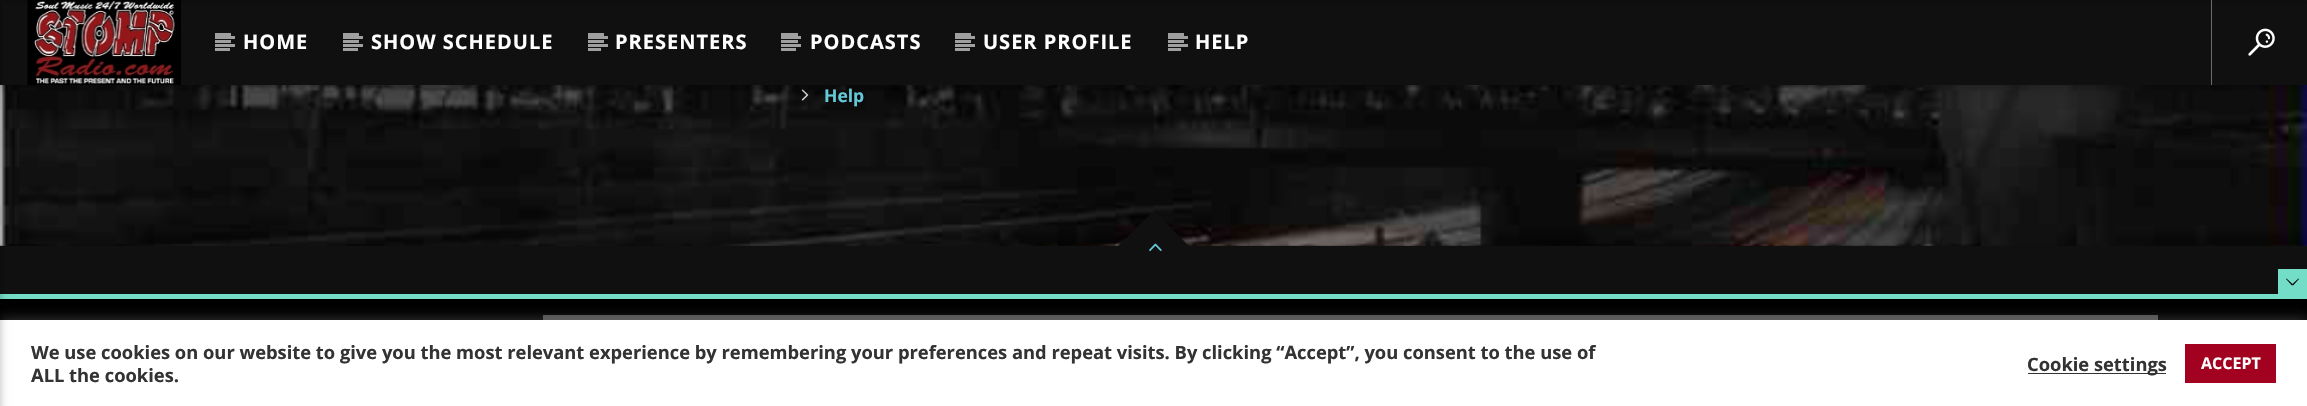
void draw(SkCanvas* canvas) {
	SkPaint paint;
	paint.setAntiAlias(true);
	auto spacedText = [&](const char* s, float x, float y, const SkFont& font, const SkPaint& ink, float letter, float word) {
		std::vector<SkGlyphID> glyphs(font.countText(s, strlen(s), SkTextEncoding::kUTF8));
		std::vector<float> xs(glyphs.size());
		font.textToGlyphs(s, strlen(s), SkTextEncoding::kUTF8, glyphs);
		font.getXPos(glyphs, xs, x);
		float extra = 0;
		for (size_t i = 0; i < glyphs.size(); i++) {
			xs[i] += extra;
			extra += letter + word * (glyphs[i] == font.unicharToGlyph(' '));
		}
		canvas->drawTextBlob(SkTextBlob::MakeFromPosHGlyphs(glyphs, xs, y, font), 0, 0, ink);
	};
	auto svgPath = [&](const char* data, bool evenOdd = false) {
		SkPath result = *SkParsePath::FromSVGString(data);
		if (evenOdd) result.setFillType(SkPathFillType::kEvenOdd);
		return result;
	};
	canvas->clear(0xff101010);
	canvas->drawImageRect(SkImages::DeferredFromEncodedData(SkData::MakeFromFileName("img3.png")), SkRect::MakeXYWH(0, 85, 2307, 161), SkSamplingOptions());
	canvas->drawImageRect(SkImages::DeferredFromEncodedData(SkData::MakeFromFileName("img4.png")), SkRect::MakeXYWH(801, 89, 8, 12), SkSamplingOptions());
	paint.setColor(0x1f000000);
	paint.setMaskFilter(SkMaskFilter::MakeBlur(kNormal_SkBlurStyle, 6));
	canvas->drawRect(SkRect::MakeXYWH(0, 3, 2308, 85), paint);
	paint.setMaskFilter(nullptr);
	paint.setColor(0x29000000);
	paint.setMaskFilter(SkMaskFilter::MakeBlur(kNormal_SkBlurStyle, 3));
	canvas->drawRect(SkRect::MakeXYWH(0, 3, 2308, 85), paint);
	paint.setMaskFilter(nullptr);
	paint.setColor(0xff101010);
	canvas->drawRect(SkRect::MakeXYWH(1, 4, 2306, 81), paint);
	paint.setColor(0xff000000);
	canvas->drawRect(SkRect::MakeXYWH(0, 299, 2307, 21), paint);
	paint.setColor(0xff74ddc7);
	canvas->drawRect(SkRect::MakeXYWH(0, 294, 2278, 5), paint);
	paint.setColor(0xff4f4f4f);
	canvas->drawRect(SkRect::MakeXYWH(543, 315, 1615, 5), paint);
	paint.setColor(0x4dacabab);
	paint.setMaskFilter(SkMaskFilter::MakeBlur(kNormal_SkBlurStyle, 6));
	canvas->drawRect(SkRect::MakeXYWH(0, 319, 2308, 86), paint);
	paint.setMaskFilter(nullptr);
	paint.setColor(0xffffffff);
	canvas->drawRect(SkRect::MakeXYWH(0, 320, 2307, 86), paint);
	paint.setColor(0x1f000000);
	paint.setMaskFilter(SkMaskFilter::MakeBlur(kNormal_SkBlurStyle, 6));
	canvas->drawRect(SkRect::MakeXYWH(-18, 3, 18, 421), paint);
	paint.setMaskFilter(nullptr);
	paint.setColor(0x29000000);
	paint.setMaskFilter(SkMaskFilter::MakeBlur(kNormal_SkBlurStyle, 3));
	canvas->drawRect(SkRect::MakeXYWH(-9, 3, 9, 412), paint);
	paint.setMaskFilter(nullptr);
	canvas->drawImageRect(SkImages::DeferredFromEncodedData(SkData::MakeFromFileName("img1.png")), SkRect::MakeXYWH(27, 0, 154, 85), SkSamplingOptions());
	paint.setColor(0xff9f9f9f);
	canvas->drawRect(SkRect::MakeXYWH(215, 48, 15, 3), paint);
	canvas->drawRect(SkRect::MakeXYWH(215, 33, 16, 3), paint);
	canvas->drawRect(SkRect::MakeXYWH(215, 40, 16, 3), paint);
	SkFont f1(fontMgr->matchFamilyStyle("Open Sans", SkFontStyle::Bold()), 20);
	f1.setSubpixel(true);
	paint.setColor(0xffffffff);
	spacedText("HOME", 243, 49, f1, paint, 1, 0);
	paint.setColor(0xff9f9f9f);
	canvas->drawRect(SkRect::MakeXYWH(215, 36, 20, 3), paint);
	canvas->drawRect(SkRect::MakeXYWH(215, 44, 20, 3), paint);
	canvas->drawRect(SkRect::MakeXYWH(343, 48, 15, 3), paint);
	canvas->drawRect(SkRect::MakeXYWH(343, 33, 16, 3), paint);
	canvas->drawRect(SkRect::MakeXYWH(343, 40, 16, 3), paint);
	paint.setColor(0xffffffff);
	spacedText("SHOW SCHEDULE", 371, 49, f1, paint, 1, 0);
	paint.setColor(0xff9f9f9f);
	canvas->drawRect(SkRect::MakeXYWH(343, 36, 20, 3), paint);
	canvas->drawRect(SkRect::MakeXYWH(343, 44, 20, 3), paint);
	canvas->drawRect(SkRect::MakeXYWH(588, 48, 13, 3), paint);
	canvas->drawRect(SkRect::MakeXYWH(588, 33, 16, 3), paint);
	canvas->drawRect(SkRect::MakeXYWH(588, 40, 16, 3), paint);
	paint.setColor(0xffffffff);
	spacedText("PRESENTERS", 615, 49, f1, paint, 1, 0);
	paint.setColor(0xff9f9f9f);
	canvas->drawRect(SkRect::MakeXYWH(588, 36, 20, 3), paint);
	canvas->drawRect(SkRect::MakeXYWH(588, 44, 20, 3), paint);
	canvas->drawRect(SkRect::MakeXYWH(781, 48, 15, 3), paint);
	canvas->drawRect(SkRect::MakeXYWH(781, 33, 17, 3), paint);
	canvas->drawRect(SkRect::MakeXYWH(781, 40, 17, 3), paint);
	paint.setColor(0xffffffff);
	spacedText("PODCASTS", 810, 49, f1, paint, 1, 0);
	paint.setColor(0xff9f9f9f);
	canvas->drawRect(SkRect::MakeXYWH(781, 36, 20, 3), paint);
	canvas->drawRect(SkRect::MakeXYWH(781, 44, 20, 3), paint);
	canvas->drawRect(SkRect::MakeXYWH(955, 48, 15, 3), paint);
	canvas->drawRect(SkRect::MakeXYWH(955, 33, 16, 3), paint);
	canvas->drawRect(SkRect::MakeXYWH(955, 40, 16, 3), paint);
	paint.setColor(0xffffffff);
	spacedText("USER PROFILE", 983, 49, f1, paint, 1, 0);
	paint.setColor(0xff9f9f9f);
	canvas->drawRect(SkRect::MakeXYWH(955, 36, 20, 3), paint);
	canvas->drawRect(SkRect::MakeXYWH(955, 44, 20, 3), paint);
	canvas->drawRect(SkRect::MakeXYWH(1168, 33, 16, 3), paint);
	canvas->drawRect(SkRect::MakeXYWH(1168, 40, 16, 3), paint);
	paint.setColor(0xffffffff);
	spacedText("HELP", 1195, 49, f1, paint, 1, 0);
	paint.setColor(0xff9f9f9f);
	canvas->drawRect(SkRect::MakeXYWH(1168, 36, 20, 3), paint);
	canvas->drawRect(SkRect::MakeXYWH(1168, 44, 20, 3), paint);
	canvas->drawRect(SkRect::MakeXYWH(1168, 48, 13, 3), paint);
	paint.setColor(0xff6b6b6b);
	canvas->drawRect(SkRect::MakeXYWH(2211, 0, 1, 85), paint);
	canvas->drawImageRect(SkImages::DeferredFromEncodedData(SkData::MakeFromFileName("img2.png")), SkRect::MakeXYWH(2248, 28, 27, 28), SkSamplingOptions());
	SkFont f2(fontMgr->matchFamilyStyle("Open Sans", SkFontStyle::Bold()), 17.5);
	f2.setSubpixel(true);
	paint.setColor(0xff64c9d9);
	canvas->drawString("Help", 824, 102, f2, paint);
	paint.setColor(0xff101010);
	canvas->drawPath(svgPath("M1118 246L1154 211L1189 246L1154 282Z"), paint);
	canvas->drawImageRect(SkImages::DeferredFromEncodedData(SkData::MakeFromFileName("img5.png")), SkRect::MakeXYWH(1149, 243, 13, 8), SkSamplingOptions());
	paint.setColor(0xff74ddc7);
	canvas->drawRect(SkRect::MakeXYWH(2278, 269, 29, 30), paint);
	paint.setColor(0xff000000);
	canvas->drawPath(svgPath("M2298.5 278.5L2299 279L2293 285.5L2292 284.5Z"), paint);
	canvas->drawPath(svgPath("M2286 279L2286.5 278.5L2293 284.5L2292 285.5Z"), paint);
	SkFont f3(fontMgr->matchFamilyStyle("Open Sans", SkFontStyle::Bold()), 18.33);
	f3.setSubpixel(true);
	paint.setColor(0xff333333);
	canvas->drawString("We use cookies on our website to give you the most relevant experience by remembering your preferences and repeat visits. By clicking “Accept”, you consent to the use of", 31, 359, f3, paint);
	canvas->drawString("ALL the cookies.", 31, 382, f3, paint);
	canvas->drawRect(SkRect::MakeXYWH(2028, 373, 138, 1), paint);
	canvas->drawString("Cookie settings", 2027, 371, f3, paint);
	paint.setColor(0xffa20220);
	canvas->drawRect(SkRect::MakeXYWH(2185, 344, 91, 39), paint);
	SkFont f4(fontMgr->matchFamilyStyle("Open Sans", SkFontStyle::Bold()), 16);
	f4.setSubpixel(true);
	paint.setColor(0xffffffff);
	canvas->drawString("ACCEPT", 2201, 369, f4, paint);
}
